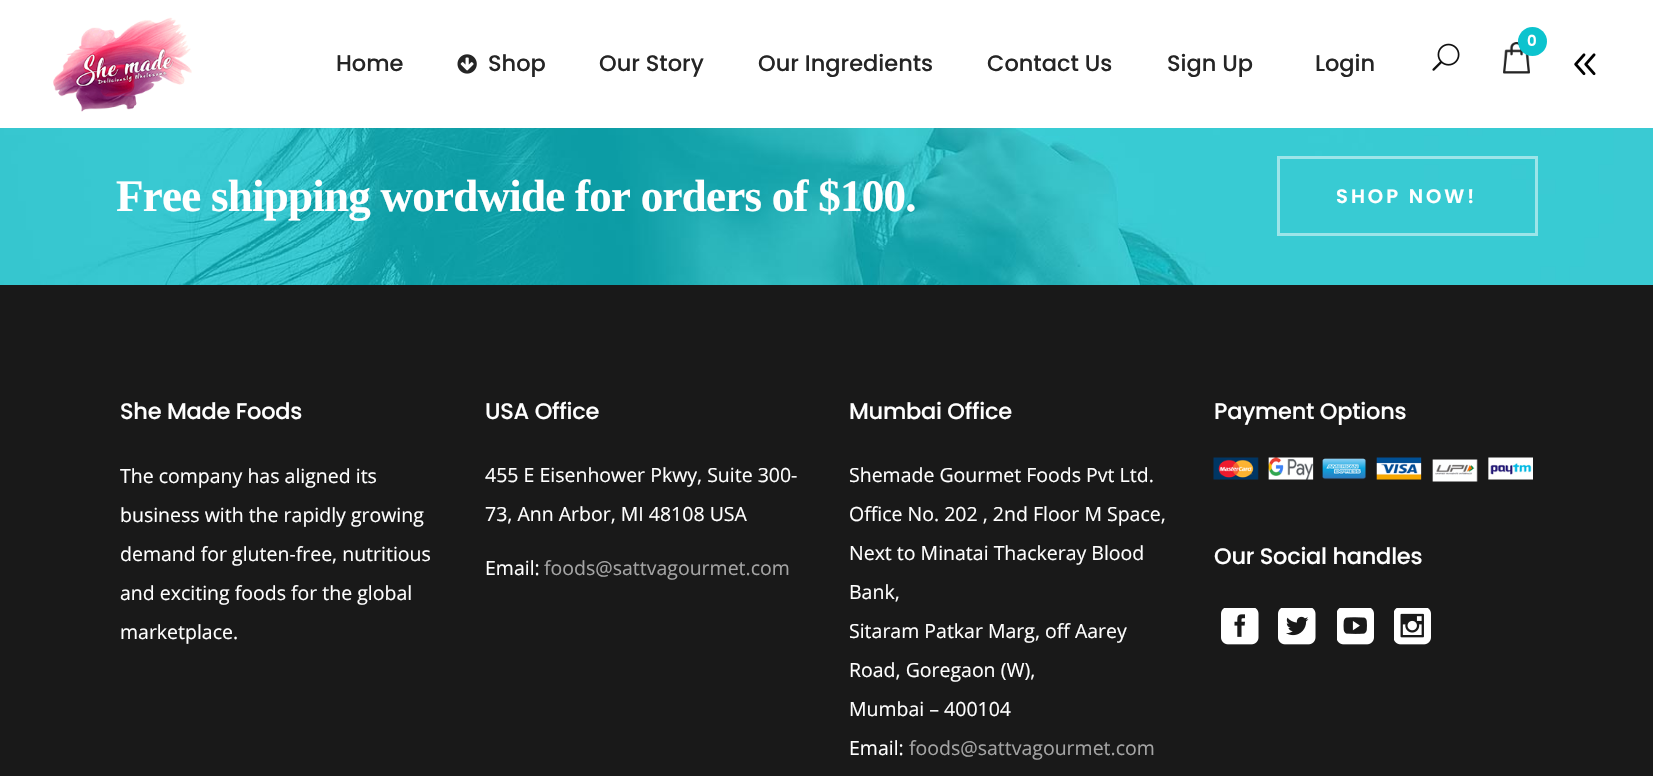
void draw(SkCanvas* canvas) {
	SkPaint paint;
	paint.setAntiAlias(true);
	auto spacedText = [&](const char* s, float x, float y, const SkFont& font, const SkPaint& ink, float letter, float word) {
		std::vector<SkGlyphID> glyphs(font.countText(s, strlen(s), SkTextEncoding::kUTF8));
		std::vector<float> xs(glyphs.size());
		font.textToGlyphs(s, strlen(s), SkTextEncoding::kUTF8, glyphs);
		font.getXPos(glyphs, xs, x);
		float extra = 0;
		for (size_t i = 0; i < glyphs.size(); i++) {
			xs[i] += extra;
			extra += letter + word * (glyphs[i] == font.unicharToGlyph(' '));
		}
		canvas->drawTextBlob(SkTextBlob::MakeFromPosHGlyphs(glyphs, xs, y, font), 0, 0, ink);
	};
	canvas->clear(0xffffffff);
	canvas->drawImageRect(SkImages::DeferredFromEncodedData(SkData::MakeFromFileName("img1.png")), SkRect::MakeXYWH(53, 17, 139, 95), SkSamplingOptions());
	canvas->drawImageRect(SkImages::DeferredFromEncodedData(SkData::MakeFromFileName("img2.png")), SkRect::MakeXYWH(1503, 42, 27, 32), SkSamplingOptions());
	paint.setColor(0xff0cc3ce);
	canvas->drawCircle(1532.5, 41.5, 14.5, paint);
	SkFont f1(fontMgr->matchFamilyStyle("Poppins", SkFontStyle(600, SkFontStyle::kNormal_Width, SkFontStyle::kUpright_Slant)), 15);
	f1.setSubpixel(true);
	paint.setColor(0xffffffff);
	canvas->drawString("0", 1527, 46, f1, paint);
	SkFont f2(fontMgr->matchFamilyStyle("Poppins", SkFontStyle(500, SkFontStyle::kNormal_Width, SkFontStyle::kUpright_Slant)), 22.5);
	f2.setSubpixel(true);
	paint.setColor(0xff252525);
	canvas->drawString("Home", 336, 71, f2, paint);
	canvas->drawImageRect(SkImages::DeferredFromEncodedData(SkData::MakeFromFileName("img3.png")), SkRect::MakeXYWH(457, 54, 20, 20), SkSamplingOptions());
	canvas->drawString("Shop", 488, 71, f2, paint);
	canvas->drawString("Our Story", 599, 71, f2, paint);
	canvas->drawString("Our Ingredients", 758, 71, f2, paint);
	canvas->drawString("Contact Us", 987, 71, f2, paint);
	canvas->drawString("Sign Up", 1167, 71, f2, paint);
	canvas->drawString("Login", 1315, 71, f2, paint);
	canvas->drawImageRect(SkImages::DeferredFromEncodedData(SkData::MakeFromFileName("img4.png")), SkRect::MakeXYWH(1432, 43, 28, 28), SkSamplingOptions());
	canvas->drawImageRect(SkImages::DeferredFromEncodedData(SkData::MakeFromFileName("img5.png")), SkRect::MakeXYWH(1574, 53, 22, 23), SkSamplingOptions());
	canvas->drawImageRect(SkImages::DeferredFromEncodedData(SkData::MakeFromFileName("img6.png")), SkRect::MakeXYWH(0, 128, 1653, 157), SkSamplingOptions());
	SkFont f3(fontMgr->matchFamilyStyle("Liberation Serif", SkFontStyle::Bold()), 45);
	f3.setSubpixel(true);
	paint.setColor(0xffffffff);
	spacedText("Free shipping wordwide for orders of $100.", 116, 211, f3, paint, -0.75, 0);
	paint.setStroke(true);
	paint.setStrokeWidth(3);
	paint.setColor(0xff9ce5e9);
	canvas->drawRect(SkRect::MakeXYWH(1278.5, 157.5, 258, 77), paint);
	SkFont f4(fontMgr->matchFamilyStyle("Poppins", SkFontStyle(600, SkFontStyle::kNormal_Width, SkFontStyle::kUpright_Slant)), 19.5);
	f4.setSubpixel(true);
	paint.setStroke(false);
	paint.setColor(0xffffffff);
	spacedText("SHOP NOW!", 1336, 203, f4, paint, 3, 0);
	paint.setColor(0xff191919);
	canvas->drawRect(SkRect::MakeXYWH(0, 285, 1653, 491), paint);
	paint.setColor(0xffffffff);
	spacedText("She Made Foods", 120, 419, f2, paint, -0.25, 0);
	SkFont f5(fontMgr->matchFamilyStyle("Open Sans", SkFontStyle::Normal()), 19.5);
	f5.setSubpixel(true);
	canvas->drawString("The company has aligned its", 120, 483, f5, paint);
	canvas->drawString("business with the rapidly growing", 120, 522, f5, paint);
	canvas->drawString("demand for gluten-free, nutritious", 120, 561, f5, paint);
	canvas->drawString("and exciting foods for the global", 120, 600, f5, paint);
	canvas->drawString("marketplace.", 120, 639, f5, paint);
	spacedText("USA Office", 485, 419, f2, paint, -0.25, 0);
	canvas->drawString("455 E Eisenhower Pkwy, Suite 300-", 485, 482, f5, paint);
	canvas->drawString("73, Ann Arbor, MI 48108 USA", 485, 521, f5, paint);
	canvas->drawString("Email:", 485, 575, f5, paint);
	paint.setColor(0xffa4a4a4);
	canvas->drawString("foods@sattvagourmet.com", 544, 575, f5, paint);
	paint.setColor(0xffffffff);
	spacedText("Mumbai Office", 849, 419, f2, paint, -0.25, 0);
	canvas->drawString("Shemade Gourmet Foods Pvt Ltd.", 849, 482, f5, paint);
	canvas->drawString("Office No. 202 , 2nd Floor M Space,", 849, 521, f5, paint);
	canvas->drawString("Next to Minatai Thackeray Blood", 849, 560, f5, paint);
	canvas->drawString("Bank,", 849, 599, f5, paint);
	canvas->drawString("Sitaram Patkar Marg, off Aarey", 849, 638, f5, paint);
	canvas->drawString("Road, Goregaon (W),", 849, 677, f5, paint);
	canvas->drawString("Mumbai – 400104", 849, 716, f5, paint);
	canvas->drawString("Email:", 849, 755, f5, paint);
	paint.setColor(0xffa4a4a4);
	canvas->drawString("foods@sattvagourmet.com", 909, 755, f5, paint);
	paint.setColor(0xffffffff);
	spacedText("Payment Options", 1214, 419, f2, paint, -0.25, 0);
	canvas->drawImageRect(SkImages::DeferredFromEncodedData(SkData::MakeFromFileName("img7.png")), SkRect::MakeXYWH(1213, 457, 320, 25), SkSamplingOptions());
	spacedText("Our Social handles", 1214, 564, f2, paint, -0.25, 0);
	canvas->drawImageRect(SkImages::DeferredFromEncodedData(SkData::MakeFromFileName("img8.png")), SkRect::MakeXYWH(1221, 608, 38, 37), SkSamplingOptions());
	canvas->drawImageRect(SkImages::DeferredFromEncodedData(SkData::MakeFromFileName("img9.png")), SkRect::MakeXYWH(1278, 608, 38, 37), SkSamplingOptions());
	canvas->drawImageRect(SkImages::DeferredFromEncodedData(SkData::MakeFromFileName("img10.png")), SkRect::MakeXYWH(1337, 608, 37, 37), SkSamplingOptions());
	canvas->drawImageRect(SkImages::DeferredFromEncodedData(SkData::MakeFromFileName("img11.png")), SkRect::MakeXYWH(1394, 608, 37, 37), SkSamplingOptions());
}
